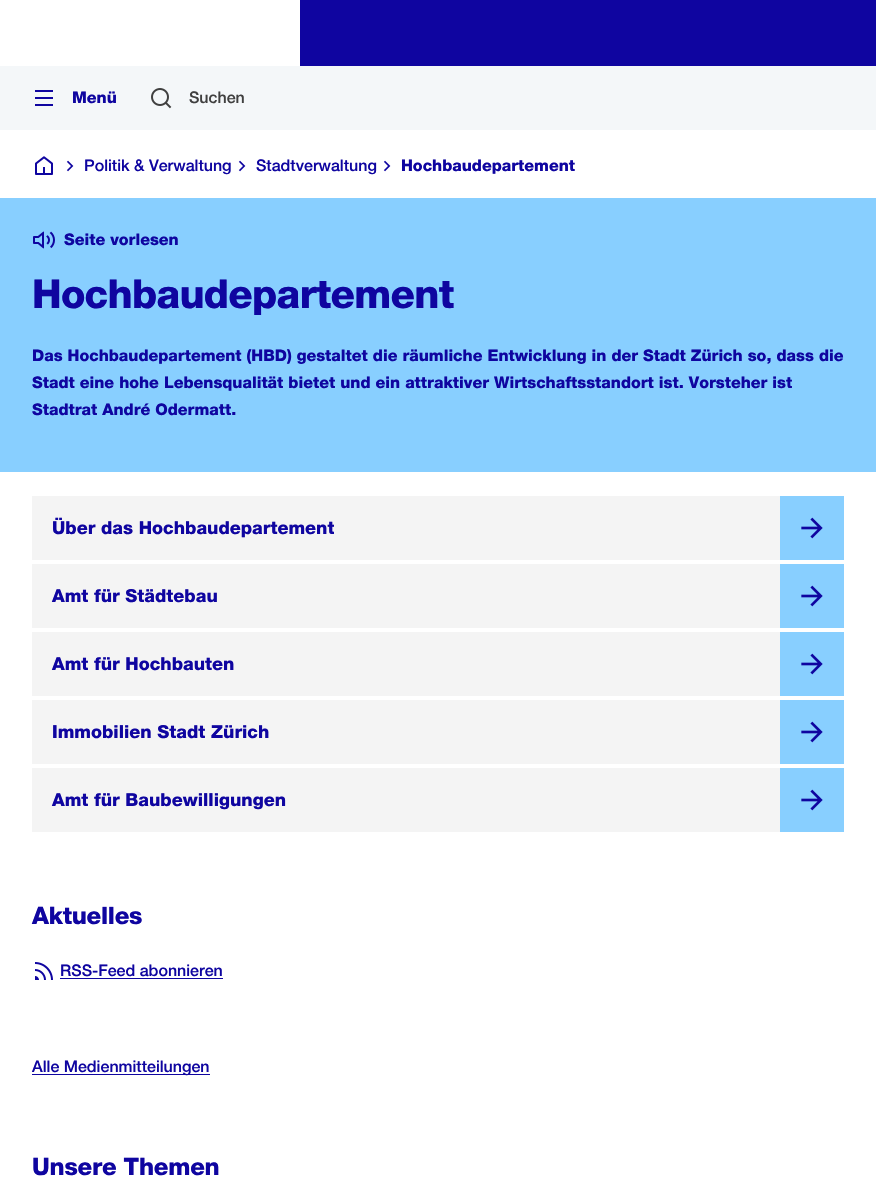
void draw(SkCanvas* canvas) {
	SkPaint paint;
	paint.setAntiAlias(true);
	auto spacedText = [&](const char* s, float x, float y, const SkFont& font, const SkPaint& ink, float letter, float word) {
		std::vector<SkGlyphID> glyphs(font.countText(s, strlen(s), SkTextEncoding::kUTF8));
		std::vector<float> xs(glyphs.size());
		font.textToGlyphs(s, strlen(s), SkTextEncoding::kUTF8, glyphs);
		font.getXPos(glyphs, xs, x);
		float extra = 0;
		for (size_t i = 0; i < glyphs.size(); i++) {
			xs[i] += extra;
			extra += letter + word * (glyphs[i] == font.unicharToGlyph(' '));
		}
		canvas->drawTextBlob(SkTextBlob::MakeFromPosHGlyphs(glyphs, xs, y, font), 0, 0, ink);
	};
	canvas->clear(0xffffffff);
	paint.setColor(0xff0f05a0);
	canvas->drawRect(SkRect::MakeXYWH(300, 0, 576, 66), paint);
	paint.setColor(0xfff4f7f9);
	canvas->drawRect(SkRect::MakeXYWH(0, 66, 876, 64), paint);
	canvas->drawImageRect(SkImages::DeferredFromEncodedData(SkData::MakeFromFileName("img1.png")), SkRect::MakeXYWH(35, 90, 18, 16), SkSamplingOptions());
	SkFont f1(fontMgr->matchFamilyStyle("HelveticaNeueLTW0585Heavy", SkFontStyle(900, SkFontStyle::kNormal_Width, SkFontStyle::kUpright_Slant)), 16);
	f1.setSubpixel(true);
	paint.setColor(0xff0f05a0);
	canvas->drawString("Menü", 72, 103, f1, paint);
	canvas->drawImageRect(SkImages::DeferredFromEncodedData(SkData::MakeFromFileName("img2.png")), SkRect::MakeXYWH(151, 88, 21, 21), SkSamplingOptions());
	SkFont f2(fontMgr->matchFamilyStyle("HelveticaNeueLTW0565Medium", SkFontStyle(500, SkFontStyle::kNormal_Width, SkFontStyle::kUpright_Slant)), 16);
	f2.setSubpixel(true);
	paint.setColor(0xff404040);
	canvas->drawString("Suchen", 189, 103, f2, paint);
	canvas->drawImageRect(SkImages::DeferredFromEncodedData(SkData::MakeFromFileName("img3.png")), SkRect::MakeXYWH(35, 156, 18, 19), SkSamplingOptions());
	canvas->drawImageRect(SkImages::DeferredFromEncodedData(SkData::MakeFromFileName("img4.png")), SkRect::MakeXYWH(66, 160, 8, 12), SkSamplingOptions());
	paint.setColor(0xff0f05a0);
	canvas->drawString("Politik & Verwaltung", 84, 171, f2, paint);
	canvas->drawImageRect(SkImages::DeferredFromEncodedData(SkData::MakeFromFileName("img4.png")), SkRect::MakeXYWH(238, 160, 8, 12), SkSamplingOptions());
	canvas->drawString("Stadtverwaltung", 256, 171, f2, paint);
	canvas->drawImageRect(SkImages::DeferredFromEncodedData(SkData::MakeFromFileName("img4.png")), SkRect::MakeXYWH(383, 160, 8, 12), SkSamplingOptions());
	canvas->drawString("Hochbaudepartement", 401, 171, f1, paint);
	paint.setColor(0xff88cfff);
	canvas->drawRect(SkRect::MakeXYWH(0, 198, 876, 274), paint);
	canvas->drawImageRect(SkImages::DeferredFromEncodedData(SkData::MakeFromFileName("img5.png")), SkRect::MakeXYWH(33, 231, 22, 18), SkSamplingOptions());
	paint.setColor(0xff0f05a0);
	canvas->drawString("Seite vorlesen", 64, 245, f1, paint);
	SkFont f3(fontMgr->matchFamilyStyle("HelveticaNeueLTW0585Heavy", SkFontStyle(900, SkFontStyle::kNormal_Width, SkFontStyle::kUpright_Slant)), 40);
	f3.setSubpixel(true);
	spacedText("Hochbaudepartement", 32, 308, f3, paint, -0.75, 0);
	canvas->drawString("Das Hochbaudepartement (HBD) gestaltet die räumliche Entwicklung in der Stadt Zürich so, dass die", 32, 361, f1, paint);
	canvas->drawString("Stadt eine hohe Lebensqualität bietet und ein attraktiver Wirtschaftsstandort ist. Vorsteher ist", 32, 388, f1, paint);
	canvas->drawString("Stadtrat André Odermatt.", 32, 415, f1, paint);
	paint.setColor(0xfff4f4f4);
	canvas->drawRect(SkRect::MakeXYWH(32, 496, 748, 64), paint);
	canvas->save();
	canvas->clipRect(SkRect::MakeXYWH(52, 514, 282, 27));
	SkFont f4(fontMgr->matchFamilyStyle("HelveticaNeueLTW0585Heavy", SkFontStyle(900, SkFontStyle::kNormal_Width, SkFontStyle::kUpright_Slant)), 18);
	f4.setSubpixel(true);
	paint.setColor(0xff0f05a0);
	canvas->drawString("Über das Hochbaudepartement", 52, 534, f4, paint);
	canvas->restore();
	paint.setColor(0xff88cfff);
	canvas->drawRect(SkRect::MakeXYWH(780, 496, 64, 64), paint);
	canvas->drawImageRect(SkImages::DeferredFromEncodedData(SkData::MakeFromFileName("img6.png")), SkRect::MakeXYWH(801, 517, 22, 22), SkSamplingOptions());
	paint.setColor(0xfff4f4f4);
	canvas->drawRect(SkRect::MakeXYWH(32, 564, 748, 64), paint);
	paint.setColor(0xff0f05a0);
	canvas->drawString("Amt für Städtebau", 52, 602, f4, paint);
	paint.setColor(0xff88cfff);
	canvas->drawRect(SkRect::MakeXYWH(780, 564, 64, 64), paint);
	canvas->drawImageRect(SkImages::DeferredFromEncodedData(SkData::MakeFromFileName("img6.png")), SkRect::MakeXYWH(801, 585, 22, 22), SkSamplingOptions());
	paint.setColor(0xfff4f4f4);
	canvas->drawRect(SkRect::MakeXYWH(32, 632, 748, 64), paint);
	paint.setColor(0xff0f05a0);
	canvas->drawString("Amt für Hochbauten", 52, 670, f4, paint);
	paint.setColor(0xff88cfff);
	canvas->drawRect(SkRect::MakeXYWH(780, 632, 64, 64), paint);
	canvas->drawImageRect(SkImages::DeferredFromEncodedData(SkData::MakeFromFileName("img6.png")), SkRect::MakeXYWH(801, 653, 22, 22), SkSamplingOptions());
	paint.setColor(0xfff4f4f4);
	canvas->drawRect(SkRect::MakeXYWH(32, 700, 748, 64), paint);
	paint.setColor(0xff0f05a0);
	canvas->drawString("Immobilien Stadt Zürich", 52, 738, f4, paint);
	paint.setColor(0xff88cfff);
	canvas->drawRect(SkRect::MakeXYWH(780, 700, 64, 64), paint);
	canvas->drawImageRect(SkImages::DeferredFromEncodedData(SkData::MakeFromFileName("img6.png")), SkRect::MakeXYWH(801, 721, 22, 22), SkSamplingOptions());
	paint.setColor(0xfff4f4f4);
	canvas->drawRect(SkRect::MakeXYWH(32, 768, 748, 64), paint);
	paint.setColor(0xff0f05a0);
	canvas->drawString("Amt für Baubewilligungen", 52, 806, f4, paint);
	paint.setColor(0xff88cfff);
	canvas->drawRect(SkRect::MakeXYWH(780, 768, 64, 64), paint);
	canvas->drawImageRect(SkImages::DeferredFromEncodedData(SkData::MakeFromFileName("img6.png")), SkRect::MakeXYWH(801, 789, 22, 22), SkSamplingOptions());
	SkFont f5(fontMgr->matchFamilyStyle("HelveticaNeueLTW0585Heavy", SkFontStyle(900, SkFontStyle::kNormal_Width, SkFontStyle::kUpright_Slant)), 24);
	f5.setSubpixel(true);
	paint.setColor(0xff0f05a0);
	spacedText("Aktuelles", 32, 924, f5, paint, -0.25, 0);
	canvas->drawImageRect(SkImages::DeferredFromEncodedData(SkData::MakeFromFileName("img7.png")), SkRect::MakeXYWH(35, 962, 18, 18), SkSamplingOptions());
	canvas->drawString("RSS-Feed abonnieren", 60, 976, f2, paint);
	canvas->drawRect(SkRect::MakeXYWH(60, 978, 163, 1), paint);
	canvas->drawRect(SkRect::MakeXYWH(32, 1074, 178, 1), paint);
	canvas->drawString("Alle Medienmitteilungen", 32, 1072, f2, paint);
	spacedText("Unsere Themen", 32, 1175, f5, paint, -0.25, 0);
}
